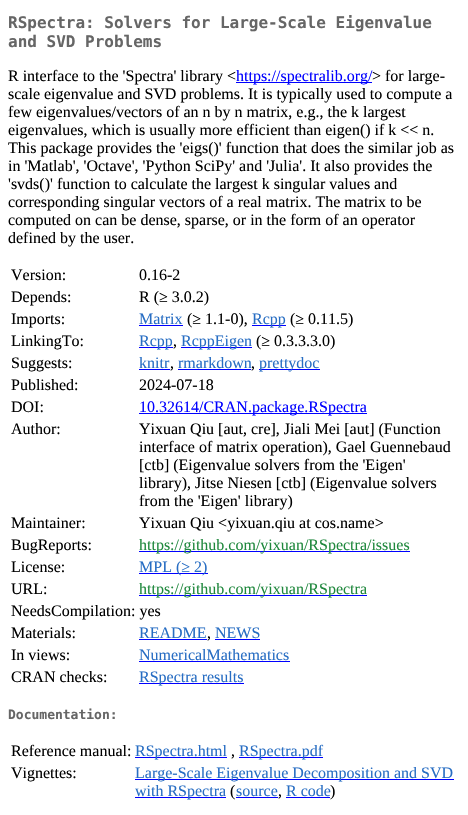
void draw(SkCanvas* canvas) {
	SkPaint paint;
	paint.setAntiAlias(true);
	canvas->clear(0xffffffff);
	SkFont f1(fontMgr->matchFamilyStyle("DejaVu Sans Mono", SkFontStyle::Bold()), 16);
	f1.setSubpixel(true);
	paint.setColor(0xff666666);
	canvas->drawString("RSpectra: Solvers for Large-Scale Eigenvalue", 8, 28, f1, paint);
	canvas->drawString("and SVD Problems", 8, 47, f1, paint);
	SkFont f2(fontMgr->matchFamilyStyle("Liberation Serif", SkFontStyle::Normal()), 16);
	f2.setSubpixel(true);
	paint.setColor(0xff000000);
	canvas->drawString("R interface to the 'Spectra' library <", 8, 81, f2, paint);
	paint.setColor(0xff0000ff);
	canvas->drawRect(SkRect::MakeXYWH(236, 82, 136, 1), paint);
	canvas->drawString("https://spectralib.org/", 236, 81, f2, paint);
	paint.setColor(0xff000000);
	canvas->drawString("> for large-", 372, 81, f2, paint);
	canvas->drawString("scale eigenvalue and SVD problems. It is typically used to compute a", 8, 99, f2, paint);
	canvas->drawString("few eigenvalues/vectors of an n by n matrix, e.g., the k largest", 8, 117, f2, paint);
	canvas->drawString("eigenvalues, which is usually more efficient than eigen() if k << n.", 8, 135, f2, paint);
	canvas->drawString("This package provides the 'eigs()' function that does the similar job as", 8, 153, f2, paint);
	canvas->drawString("in 'Matlab', 'Octave', 'Python SciPy' and 'Julia'. It also provides the", 8, 171, f2, paint);
	canvas->drawString("'svds()' function to calculate the largest k singular values and", 8, 189, f2, paint);
	canvas->drawString("corresponding singular vectors of a real matrix. The matrix to be", 8, 207, f2, paint);
	canvas->drawString("computed on can be dense, sparse, or in the form of an operator", 8, 225, f2, paint);
	canvas->drawString("defined by the user.", 8, 243, f2, paint);
	canvas->drawString("Version:", 11, 280, f2, paint);
	canvas->drawString("0.16-2", 139, 280, f2, paint);
	canvas->drawString("Depends:", 11, 302, f2, paint);
	canvas->drawString("R (≥ 3.0.2)", 139, 302, f2, paint);
	canvas->drawString("Imports:", 11, 324, f2, paint);
	paint.setColor(0xff276dc3);
	canvas->drawString("Matrix", 139, 324, f2, paint);
	paint.setColor(0xff0000ff);
	canvas->drawRect(SkRect::MakeXYWH(139, 325, 44, 1), paint);
	paint.setColor(0xff000000);
	canvas->drawString("(≥ 1.1-0),", 187, 324, f2, paint);
	paint.setColor(0xff0000ff);
	canvas->drawRect(SkRect::MakeXYWH(252, 325, 34, 1), paint);
	paint.setColor(0xff276dc3);
	canvas->drawString("Rcpp", 252, 324, f2, paint);
	paint.setColor(0xff000000);
	canvas->drawString("(≥ 0.11.5)", 290, 324, f2, paint);
	canvas->drawString("LinkingTo:", 11, 346, f2, paint);
	paint.setColor(0xff0000ff);
	canvas->drawRect(SkRect::MakeXYWH(139, 347, 34, 1), paint);
	paint.setColor(0xff276dc3);
	canvas->drawString("Rcpp", 139, 346, f2, paint);
	paint.setColor(0xff000000);
	canvas->drawString(",", 173, 346, f2, paint);
	paint.setColor(0xff0000ff);
	canvas->drawRect(SkRect::MakeXYWH(181, 347, 71, 1), paint);
	paint.setColor(0xff276dc3);
	canvas->drawString("RcppEigen", 181, 346, f2, paint);
	paint.setColor(0xff000000);
	canvas->drawString("(≥ 0.3.3.3.0)", 256, 346, f2, paint);
	canvas->drawString("Suggests:", 11, 368, f2, paint);
	paint.setColor(0xff276dc3);
	canvas->drawString("knitr", 139, 368, f2, paint);
	paint.setColor(0xff0000ff);
	canvas->drawRect(SkRect::MakeXYWH(139, 369, 31, 1), paint);
	paint.setColor(0xff000000);
	canvas->drawString(",", 170, 368, f2, paint);
	paint.setColor(0xff276dc3);
	canvas->drawString("rmarkdown", 178, 368, f2, paint);
	paint.setColor(0xff0000ff);
	canvas->drawRect(SkRect::MakeXYWH(178, 369, 73, 1), paint);
	paint.setColor(0xff000000);
	canvas->drawString(",", 251, 368, f2, paint);
	paint.setColor(0xff0000ff);
	canvas->drawRect(SkRect::MakeXYWH(259, 369, 61, 1), paint);
	paint.setColor(0xff276dc3);
	canvas->drawString("prettydoc", 259, 368, f2, paint);
	paint.setColor(0xff000000);
	canvas->drawString("Published:", 11, 390, f2, paint);
	canvas->drawString("2024-07-18", 139, 390, f2, paint);
	canvas->drawString("DOI:", 11, 412, f2, paint);
	paint.setColor(0xff0000ff);
	canvas->drawRect(SkRect::MakeXYWH(139, 413, 228, 1), paint);
	canvas->drawString("10.32614/CRAN.package.RSpectra", 139, 412, f2, paint);
	paint.setColor(0xff000000);
	canvas->drawString("Author:", 11, 434, f2, paint);
	canvas->drawString("Yixuan Qiu [aut, cre], Jiali Mei [aut] (Function", 139, 434, f2, paint);
	canvas->drawString("interface of matrix operation), Gael Guennebaud", 139, 452, f2, paint);
	canvas->drawString("[ctb] (Eigenvalue solvers from the 'Eigen'", 139, 470, f2, paint);
	canvas->drawString("library), Jitse Niesen [ctb] (Eigenvalue solvers", 139, 488, f2, paint);
	canvas->drawString("from the 'Eigen' library)", 139, 506, f2, paint);
	canvas->drawString("Maintainer:", 11, 528, f2, paint);
	canvas->drawString("Yixuan Qiu <yixuan.qiu at cos.name>", 139, 528, f2, paint);
	canvas->drawString("BugReports:", 11, 550, f2, paint);
	paint.setColor(0xff0000ff);
	canvas->drawRect(SkRect::MakeXYWH(139, 551, 271, 1), paint);
	paint.setColor(0xff1f883d);
	canvas->drawString("https://github.com/yixuan/RSpectra/issues", 139, 550, f2, paint);
	paint.setColor(0xff000000);
	canvas->drawString("License:", 11, 572, f2, paint);
	paint.setColor(0xff0000ff);
	canvas->drawRect(SkRect::MakeXYWH(139, 573, 69, 1), paint);
	paint.setColor(0xff276dc3);
	canvas->drawString("MPL (≥ 2)", 139, 572, f2, paint);
	paint.setColor(0xff000000);
	canvas->drawString("URL:", 11, 594, f2, paint);
	paint.setColor(0xff0000ff);
	canvas->drawRect(SkRect::MakeXYWH(139, 595, 228, 1), paint);
	paint.setColor(0xff1f883d);
	canvas->drawString("https://github.com/yixuan/RSpectra", 139, 594, f2, paint);
	paint.setColor(0xff000000);
	canvas->drawString("NeedsCompilation: yes", 11, 616, f2, paint);
	canvas->drawString("Materials:", 11, 638, f2, paint);
	paint.setColor(0xff276dc3);
	canvas->drawString("README", 139, 638, f2, paint);
	paint.setColor(0xff0000ff);
	canvas->drawRect(SkRect::MakeXYWH(139, 639, 68, 1), paint);
	paint.setColor(0xff000000);
	canvas->drawString(",", 207, 638, f2, paint);
	paint.setColor(0xff276dc3);
	canvas->drawString("NEWS", 215, 638, f2, paint);
	paint.setColor(0xff0000ff);
	canvas->drawRect(SkRect::MakeXYWH(215, 639, 45, 1), paint);
	paint.setColor(0xff000000);
	canvas->drawString("In views:", 11, 660, f2, paint);
	paint.setColor(0xff276dc3);
	canvas->drawString("NumericalMathematics", 139, 660, f2, paint);
	paint.setColor(0xff0000ff);
	canvas->drawRect(SkRect::MakeXYWH(139, 661, 151, 1), paint);
	paint.setColor(0xff000000);
	canvas->drawString("CRAN checks:", 11, 682, f2, paint);
	paint.setColor(0xff0000ff);
	canvas->drawRect(SkRect::MakeXYWH(139, 683, 105, 1), paint);
	paint.setColor(0xff276dc3);
	canvas->drawString("RSpectra results", 139, 682, f2, paint);
	SkFont f3(fontMgr->matchFamilyStyle("DejaVu Sans Mono", SkFontStyle::Bold()), 13);
	f3.setSubpixel(true);
	paint.setColor(0xff666666);
	canvas->drawString("Documentation:", 8, 719, f3, paint);
	paint.setColor(0xff000000);
	canvas->drawString("Reference manual:", 11, 756, f2, paint);
	paint.setColor(0xff0000ff);
	canvas->drawRect(SkRect::MakeXYWH(135, 757, 92, 1), paint);
	paint.setColor(0xff276dc3);
	canvas->drawString("RSpectra.html", 135, 756, f2, paint);
	paint.setColor(0xff000000);
	canvas->drawString(",", 231, 756, f2, paint);
	paint.setColor(0xff0000ff);
	canvas->drawRect(SkRect::MakeXYWH(239, 757, 84, 1), paint);
	paint.setColor(0xff276dc3);
	canvas->drawString("RSpectra.pdf", 239, 756, f2, paint);
	paint.setColor(0xff000000);
	canvas->drawString("Vignettes:", 11, 778, f2, paint);
	paint.setColor(0xff0000ff);
	canvas->drawRect(SkRect::MakeXYWH(135, 779, 319, 1), paint);
	paint.setColor(0xff276dc3);
	canvas->drawString("Large-Scale Eigenvalue Decomposition and SVD", 135, 778, f2, paint);
	paint.setColor(0xff0000ff);
	canvas->drawRect(SkRect::MakeXYWH(135, 797, 91, 1), paint);
	paint.setColor(0xff276dc3);
	canvas->drawString("with RSpectra", 135, 796, f2, paint);
	paint.setColor(0xff000000);
	canvas->drawString("(", 230, 796, f2, paint);
	paint.setColor(0xff276dc3);
	canvas->drawString("source", 236, 796, f2, paint);
	paint.setColor(0xff0000ff);
	canvas->drawRect(SkRect::MakeXYWH(236, 797, 42, 1), paint);
	paint.setColor(0xff000000);
	canvas->drawString(",", 278, 796, f2, paint);
	paint.setColor(0xff276dc3);
	canvas->drawString("R code", 286, 796, f2, paint);
	paint.setColor(0xff0000ff);
	canvas->drawRect(SkRect::MakeXYWH(286, 797, 44, 1), paint);
	paint.setColor(0xff000000);
	canvas->drawString(")", 330, 796, f2, paint);
}
